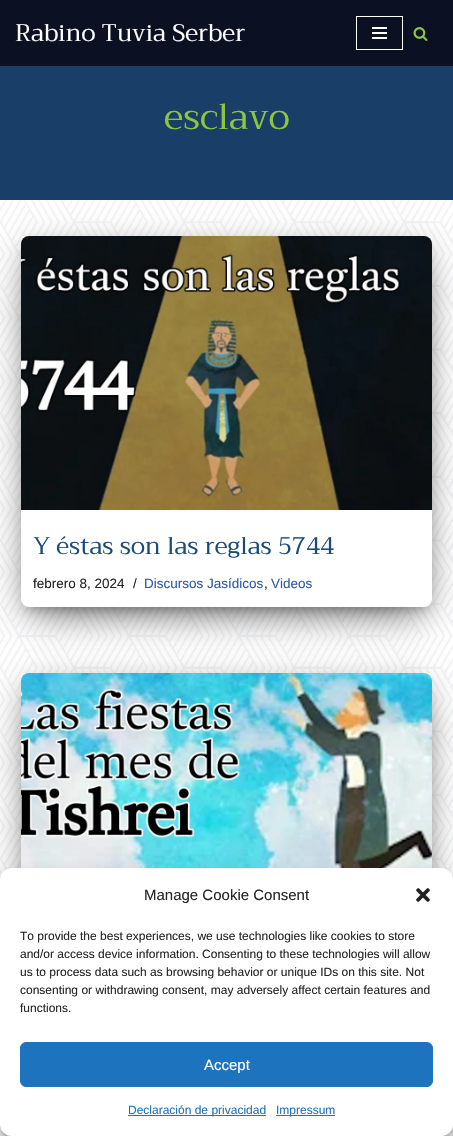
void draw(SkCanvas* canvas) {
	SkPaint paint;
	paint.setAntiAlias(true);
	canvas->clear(0xffffffff);
	paint.setColor(0xff0b1023);
	canvas->drawRect(SkRect::MakeXYWH(0, 0, 453, 66), paint);
	SkFont f1(fontMgr->matchFamilyStyle("Trirong", SkFontStyle::Normal()), 24);
	f1.setSubpixel(true);
	paint.setColor(0xffffffff);
	canvas->drawString("Rabino Tuvia Serber", 15, 41, f1, paint);
	paint.setStroke(true);
	paint.setStrokeWidth(1);
	canvas->drawRect(SkRect::MakeXYWH(356.5, 16.5, 46, 33), paint);
	paint.setStroke(false);
	canvas->drawRect(SkRect::MakeXYWH(372, 27, 15, 2), paint);
	canvas->drawRect(SkRect::MakeXYWH(372, 32, 15, 2), paint);
	canvas->drawRect(SkRect::MakeXYWH(372, 37, 15, 2), paint);
	canvas->drawImageRect(SkImages::DeferredFromEncodedData(SkData::MakeFromFileName("img1.png")), SkRect::MakeXYWH(413, 27, 15, 14), SkSamplingOptions());
	paint.setColor(0xff193e67);
	canvas->drawRect(SkRect::MakeXYWH(0, 66, 453, 134), paint);
	SkFont f2(fontMgr->matchFamilyStyle("Trirong", SkFontStyle::Normal()), 36);
	f2.setSubpixel(true);
	paint.setColor(0xff8cc63f);
	canvas->drawString("esclavo", 164, 129, f2, paint);
	canvas->drawImageRect(SkImages::DeferredFromEncodedData(SkData::MakeFromFileName("img2.png")), SkRect::MakeXYWH(0, 200, 453, 936), SkSamplingOptions());
	paint.setColor(0x33000000);
	paint.setMaskFilter(SkMaskFilter::MakeBlur(kNormal_SkBlurStyle, 5));
	canvas->drawRoundRect(SkRect::MakeXYWH(26, 249, 401, 361), 3, 3, paint);
	paint.setMaskFilter(nullptr);
	paint.setColor(0x1f000000);
	paint.setMaskFilter(SkMaskFilter::MakeBlur(kNormal_SkBlurStyle, 12.5));
	canvas->drawRoundRect(SkRect::MakeXYWH(21, 240, 411, 371), 8, 8, paint);
	paint.setMaskFilter(nullptr);
	paint.setColor(0x8f000000);
	paint.setMaskFilter(SkMaskFilter::MakeBlur(kNormal_SkBlurStyle, 19));
	canvas->drawRect(SkRect::MakeXYWH(33, 264, 387, 347), paint);
	paint.setMaskFilter(nullptr);
	paint.setColor(0xffffffff);
	canvas->drawRoundRect(SkRect::MakeXYWH(21, 236, 411, 371), 8, 8, paint);
	canvas->drawRect(SkRect::MakeXYWH(21, 236, 411, 7), paint);
	canvas->drawImageRect(SkImages::DeferredFromEncodedData(SkData::MakeFromFileName("img3.png")), SkRect::MakeXYWH(21, 236, 411, 274), SkSamplingOptions());
	paint.setColor(0xff1b4b7b);
	canvas->drawString("Y éstas son las reglas 5744", 33, 554, f1, paint);
	SkFont f3(fontMgr->matchFamilyStyle("Liberation Sans", SkFontStyle::Normal()), 13.5);
	f3.setSubpixel(true);
	paint.setColor(0xff272626);
	canvas->drawString("febrero 8, 2024", 33, 588, f3, paint);
	canvas->drawString("/", 133, 588, f3, paint);
	paint.setColor(0xff2f5aae);
	canvas->drawString("Discursos Jasídicos", 144, 588, f3, paint);
	paint.setColor(0xff272626);
	canvas->drawString(",", 264, 588, f3, paint);
	paint.setColor(0xff2f5aae);
	canvas->drawString("Videos", 271, 588, f3, paint);
	paint.setColor(0x33000000);
	paint.setMaskFilter(SkMaskFilter::MakeBlur(kNormal_SkBlurStyle, 5));
	canvas->drawRoundRect(SkRect::MakeXYWH(26, 686, 401, 383), 3, 3, paint);
	paint.setMaskFilter(nullptr);
	paint.setColor(0x1f000000);
	paint.setMaskFilter(SkMaskFilter::MakeBlur(kNormal_SkBlurStyle, 12.5));
	canvas->drawRoundRect(SkRect::MakeXYWH(21, 677, 411, 393), 8, 8, paint);
	paint.setMaskFilter(nullptr);
	paint.setColor(0x8f000000);
	paint.setMaskFilter(SkMaskFilter::MakeBlur(kNormal_SkBlurStyle, 19));
	canvas->drawRect(SkRect::MakeXYWH(33, 701, 387, 369), paint);
	paint.setMaskFilter(nullptr);
	paint.setColor(0xffffffff);
	canvas->drawRect(SkRect::MakeXYWH(21, 673, 411, 8), paint);
	canvas->drawImageRect(SkImages::DeferredFromEncodedData(SkData::MakeFromFileName("img4.png")), SkRect::MakeXYWH(21, 673, 411, 195), SkSamplingOptions());
	paint.setColor(0x3b000000);
	paint.setMaskFilter(SkMaskFilter::MakeBlur(kNormal_SkBlurStyle, 3));
	canvas->drawRoundRect(SkRect::MakeXYWH(0, 874, 453, 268), 12, 12, paint);
	paint.setMaskFilter(nullptr);
	paint.setColor(0x30000000);
	paint.setMaskFilter(SkMaskFilter::MakeBlur(kNormal_SkBlurStyle, 10));
	canvas->drawRoundRect(SkRect::MakeXYWH(0, 878, 453, 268), 12, 12, paint);
	paint.setMaskFilter(nullptr);
	paint.setColor(0xffffffff);
	canvas->drawRoundRect(SkRect::MakeXYWH(0, 868, 453, 268), 12, 12, paint);
	SkFont f4(fontMgr->matchFamilyStyle("Liberation Sans", SkFontStyle::Normal()), 15);
	f4.setSubpixel(true);
	paint.setColor(0xff272626);
	canvas->drawString("Manage Cookie Consent", 144, 900, f4, paint);
	canvas->drawImageRect(SkImages::DeferredFromEncodedData(SkData::MakeFromFileName("img5.png")), SkRect::MakeXYWH(416, 888, 14, 14), SkSamplingOptions());
	SkFont f5(fontMgr->matchFamilyStyle("Liberation Sans", SkFontStyle::Normal()), 12);
	f5.setSubpixel(true);
	canvas->drawString("To provide the best experiences, we use technologies like cookies to store", 20, 940, f5, paint);
	canvas->drawString("and/or access device information. Consenting to these technologies will allow", 20, 958, f5, paint);
	canvas->drawString("us to process data such as browsing behavior or unique IDs on this site. Not", 20, 976, f5, paint);
	canvas->drawString("consenting or withdrawing consent, may adversely affect certain features and", 20, 994, f5, paint);
	canvas->drawString("functions.", 20, 1012, f5, paint);
	paint.setColor(0xff1e73be);
	canvas->drawRoundRect(SkRect::MakeXYWH(20.5, 1042.5, 412, 44), 5.5, 5.5, paint);
	paint.setStroke(true);
	canvas->drawRoundRect(SkRect::MakeXYWH(20.5, 1042.5, 412, 44), 5.5, 5.5, paint);
	paint.setStroke(false);
	paint.setColor(0xffffffff);
	canvas->drawString("Accept", 204, 1070, f4, paint);
	paint.setColor(0xff1e73be);
	canvas->drawRect(SkRect::MakeXYWH(128, 1115, 138, 1), paint);
	canvas->drawString("Declaración de privacidad", 128, 1114, f5, paint);
	canvas->drawRect(SkRect::MakeXYWH(276, 1115, 59, 1), paint);
	canvas->drawString("Impressum", 276, 1114, f5, paint);
}
